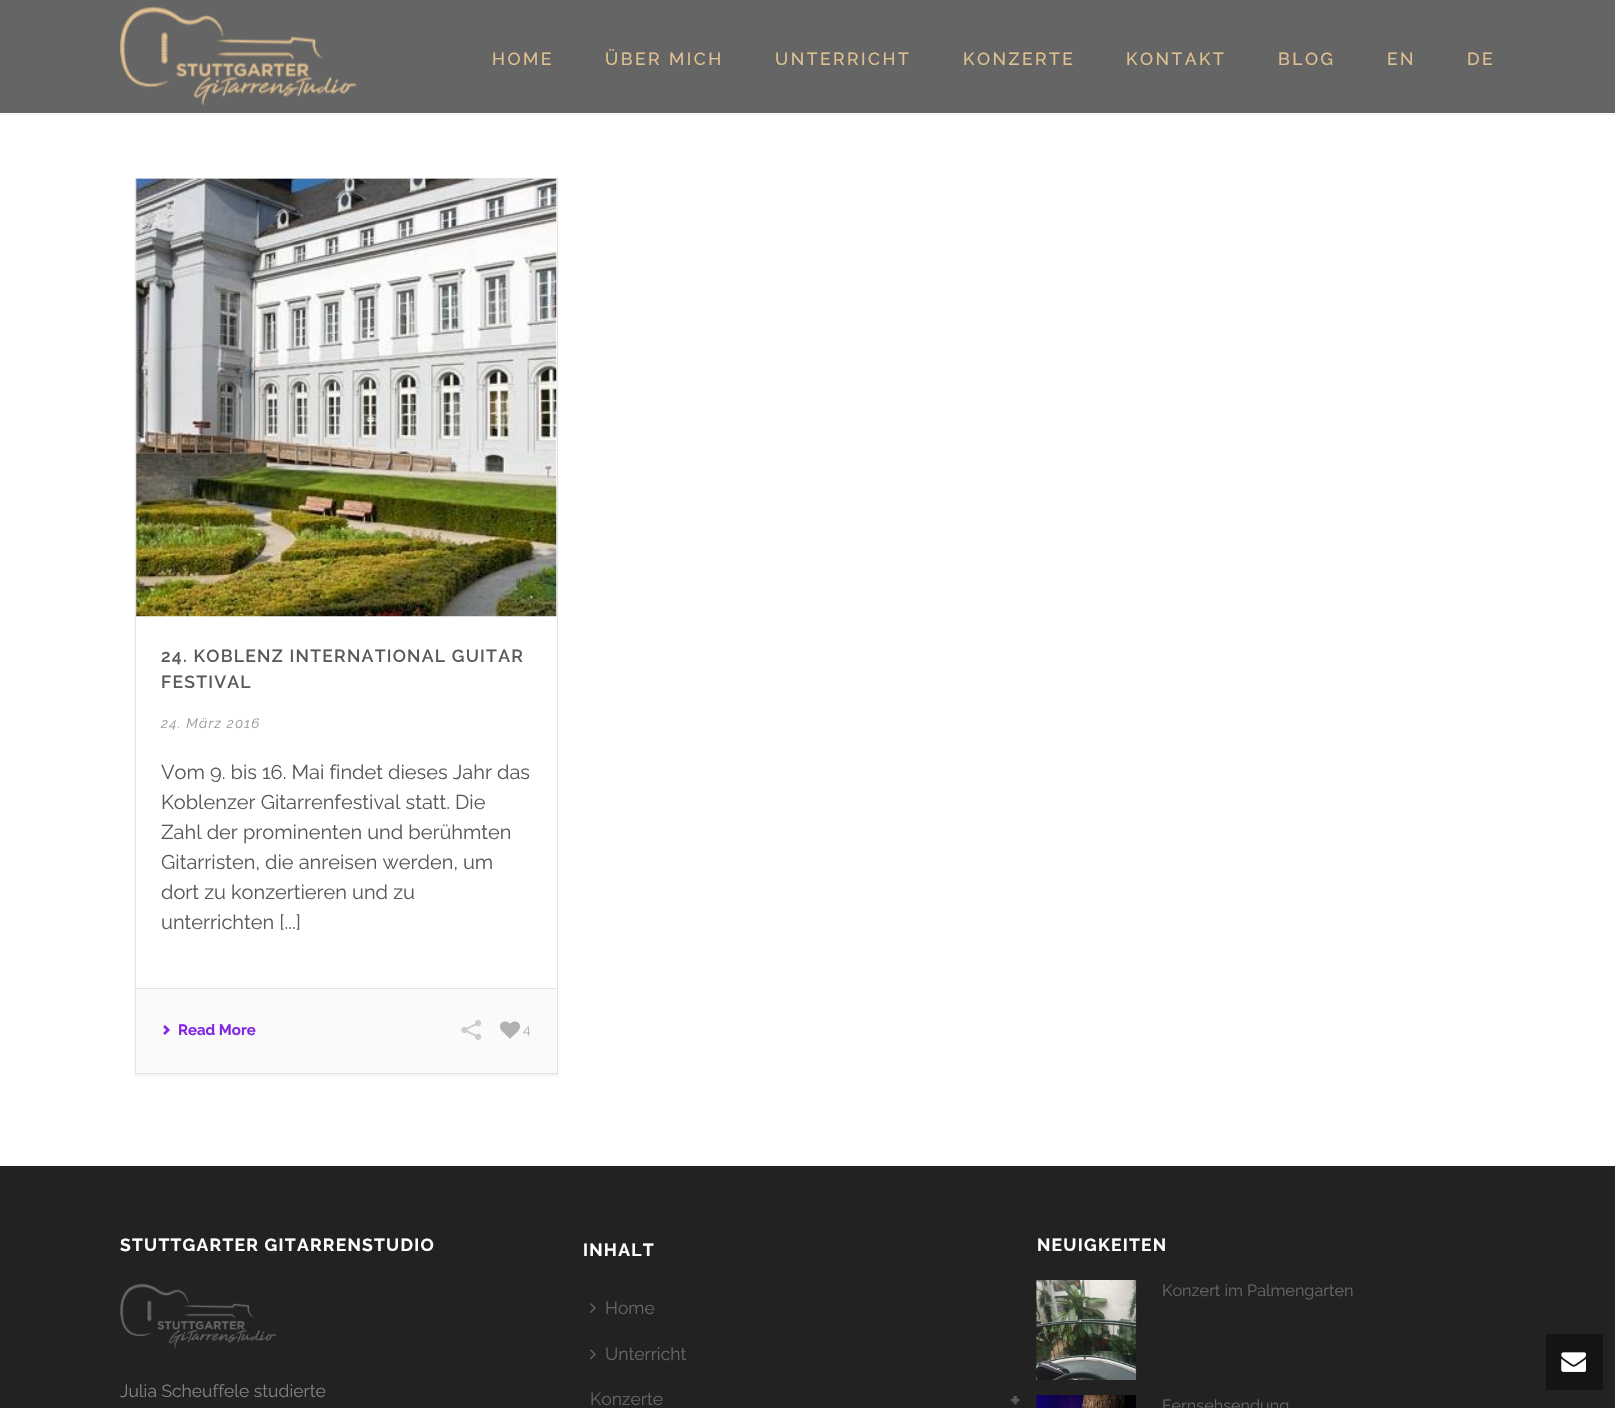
void draw(SkCanvas* canvas) {
	SkPaint paint;
	paint.setAntiAlias(true);
	auto spacedText = [&](const char* s, float x, float y, const SkFont& font, const SkPaint& ink, float letter, float word) {
		std::vector<SkGlyphID> glyphs(font.countText(s, strlen(s), SkTextEncoding::kUTF8));
		std::vector<float> xs(glyphs.size());
		font.textToGlyphs(s, strlen(s), SkTextEncoding::kUTF8, glyphs);
		font.getXPos(glyphs, xs, x);
		float extra = 0;
		for (size_t i = 0; i < glyphs.size(); i++) {
			xs[i] += extra;
			extra += letter + word * (glyphs[i] == font.unicharToGlyph(' '));
		}
		canvas->drawTextBlob(SkTextBlob::MakeFromPosHGlyphs(glyphs, xs, y, font), 0, 0, ink);
	};
	canvas->clear(0xffffffff);
	paint.setColor(0xffededed);
	canvas->drawRect(SkRect::MakeXYWH(0, 114, 1615, 1), paint);
	paint.setColor(0xff666565);
	canvas->drawRect(SkRect::MakeXYWH(0, 0, 1615, 113), paint);
	canvas->drawImageRect(SkImages::DeferredFromEncodedData(SkData::MakeFromFileName("img1.png")), SkRect::MakeXYWH(120, 7, 237, 99), SkSamplingOptions());
	SkFont f1(fontMgr->matchFamilyStyle("Raleway", SkFontStyle(500, SkFontStyle::kNormal_Width, SkFontStyle::kUpright_Slant)), 17.5);
	f1.setSubpixel(true);
	paint.setColor(0xffe0c091);
	spacedText("HOME", 492, 65, f1, paint, 2.5, 0);
	spacedText("ÜBER MICH", 605, 65, f1, paint, 2.5, 0);
	spacedText("UNTERRICHT", 775, 65, f1, paint, 2.5, 0);
	spacedText("KONZERTE", 963, 65, f1, paint, 2.5, 0);
	spacedText("KONTAKT", 1126, 65, f1, paint, 2.5, 0);
	spacedText("BLOG", 1278, 65, f1, paint, 2.5, 0);
	spacedText("EN", 1387, 65, f1, paint, 2.5, 0);
	spacedText("DE", 1467, 65, f1, paint, 2.5, 0);
	paint.setColor(0x0d000000);
	paint.setMaskFilter(SkMaskFilter::MakeBlur(kNormal_SkBlurStyle, 0.5));
	canvas->drawRect(SkRect::MakeXYWH(135, 180, 423, 896), paint);
	paint.setMaskFilter(nullptr);
	paint.setColor(0xffffffff);
	canvas->drawRect(SkRect::MakeXYWH(136, 180, 421, 893), paint);
	paint.setStroke(true);
	paint.setStrokeWidth(1);
	paint.setColor(0xffe3e3e3);
	canvas->drawRect(SkRect::MakeXYWH(135.5, 178.5, 422, 895), paint);
	canvas->drawImageRect(SkImages::DeferredFromEncodedData(SkData::MakeFromFileName("img2.png")), SkRect::MakeXYWH(136, 178, 421, 439), SkSamplingOptions());
	SkFont f2(fontMgr->matchFamilyStyle("Raleway", SkFontStyle(600, SkFontStyle::kNormal_Width, SkFontStyle::kUpright_Slant)), 17.5);
	f2.setSubpixel(true);
	paint.setStroke(false);
	paint.setColor(0xff5a5a5a);
	spacedText("24. KOBLENZ INTERNATIONAL GUITAR", 161, 662, f2, paint, 1.25, 0);
	spacedText("FESTIVAL", 161, 688, f2, paint, 1.25, 0);
	SkFont f3(fontMgr->matchFamilyStyle("Raleway", SkFontStyle::Italic()), 13.75);
	f3.setSubpixel(true);
	paint.setColor(0xff999999);
	spacedText("24. März 2016", 161, 728, f3, paint, 1.25, 0);
	SkFont f4(fontMgr->matchFamilyStyle("Raleway", SkFontStyle::Normal()), 20);
	f4.setSubpixel(true);
	paint.setColor(0xff5a5a5a);
	canvas->drawString("Vom 9. bis 16. Mai findet dieses Jahr das", 161, 779, f4, paint);
	canvas->drawString("Koblenzer Gitarrenfestival statt. Die", 161, 809, f4, paint);
	canvas->drawString("Zahl der prominenten und berühmten", 161, 839, f4, paint);
	canvas->drawString("Gitarristen, die anreisen werden, um", 161, 869, f4, paint);
	canvas->drawString("dort zu konzertieren und zu", 161, 899, f4, paint);
	canvas->drawString("unterrichten [...]", 161, 929, f4, paint);
	paint.setColor(0xfffafafa);
	canvas->drawRect(SkRect::MakeXYWH(136, 989, 420, 84), paint);
	paint.setColor(0xffe3e3e3);
	canvas->drawRect(SkRect::MakeXYWH(136, 988, 420, 1), paint);
	canvas->drawImageRect(SkImages::DeferredFromEncodedData(SkData::MakeFromFileName("img3.png")), SkRect::MakeXYWH(163, 1025, 7, 10), SkSamplingOptions());
	SkFont f5(fontMgr->matchFamilyStyle("Raleway", SkFontStyle::Bold()), 15);
	f5.setSubpixel(true);
	paint.setColor(0xff8224e3);
	canvas->drawString("Read More", 178, 1035, f5, paint);
	canvas->drawImageRect(SkImages::DeferredFromEncodedData(SkData::MakeFromFileName("img4.png")), SkRect::MakeXYWH(461, 1020, 20, 20), SkSamplingOptions());
	canvas->drawImageRect(SkImages::DeferredFromEncodedData(SkData::MakeFromFileName("img5.png")), SkRect::MakeXYWH(500, 1021, 20, 18), SkSamplingOptions());
	SkFont f6(fontMgr->matchFamilyStyle("Raleway", SkFontStyle::Normal()), 13.75);
	f6.setSubpixel(true);
	paint.setColor(0xffb1b1b1);
	canvas->drawString("4", 523, 1034, f6, paint);
	paint.setColor(0xff222222);
	canvas->drawRect(SkRect::MakeXYWH(0, 1166, 1615, 242), paint);
	SkFont f7(fontMgr->matchFamilyStyle("Raleway", SkFontStyle::Bold()), 17.5);
	f7.setSubpixel(true);
	paint.setColor(0xffffffff);
	spacedText("STUTTGARTER GITARRENSTUDIO", 120, 1251, f7, paint, 1.25, 0);
	canvas->drawImageRect(SkImages::DeferredFromEncodedData(SkData::MakeFromFileName("img6.png")), SkRect::MakeXYWH(120, 1284, 157, 65), SkSamplingOptions());
	SkFont f8(fontMgr->matchFamilyStyle("Raleway", SkFontStyle::Normal()), 17.5);
	f8.setSubpixel(true);
	paint.setColor(0xff808080);
	canvas->drawString("Julia Scheuffele studierte", 120, 1397, f8, paint);
	paint.setColor(0xffffffff);
	spacedText("INHALT", 583, 1256, f7, paint, 1.25, 0);
	canvas->drawImageRect(SkImages::DeferredFromEncodedData(SkData::MakeFromFileName("img7.png")), SkRect::MakeXYWH(590, 1303, 6, 10), SkSamplingOptions());
	paint.setColor(0xff666666);
	canvas->drawString("Home", 605, 1314, f8, paint);
	canvas->drawImageRect(SkImages::DeferredFromEncodedData(SkData::MakeFromFileName("img8.png")), SkRect::MakeXYWH(590, 1349, 6, 11), SkSamplingOptions());
	canvas->drawString("Unterricht", 605, 1360, f8, paint);
	canvas->drawString("Konzerte", 590, 1405, f8, paint);
	SkFont f9(fontMgr->matchFamilyStyle("Raleway", SkFontStyle::Bold()), 25);
	f9.setSubpixel(true);
	paint.setColor(0xff5a5a5a);
	canvas->drawString("+", 1010, 1409, f9, paint);
	paint.setColor(0xffffffff);
	spacedText("NEUIGKEITEN", 1037, 1251, f7, paint, 1.25, 0);
	canvas->drawImageRect(SkImages::DeferredFromEncodedData(SkData::MakeFromFileName("img9.png")), SkRect::MakeXYWH(1036, 1280, 101, 100), SkSamplingOptions());
	SkFont f10(fontMgr->matchFamilyStyle("Raleway", SkFontStyle::Normal()), 16.25);
	f10.setSubpixel(true);
	paint.setColor(0xff666666);
	canvas->drawString("Konzert im Palmengarten", 1162, 1296, f10, paint);
	canvas->drawImageRect(SkImages::DeferredFromEncodedData(SkData::MakeFromFileName("img10.png")), SkRect::MakeXYWH(1036, 1395, 100, 13), SkSamplingOptions());
	canvas->drawString("Fernsehsendung", 1162, 1411, f10, paint);
	paint.setColor(0xff141414);
	canvas->drawRect(SkRect::MakeXYWH(1546, 1334, 57, 56), paint);
	canvas->drawImageRect(SkImages::DeferredFromEncodedData(SkData::MakeFromFileName("img11.png")), SkRect::MakeXYWH(1561, 1352, 25, 20), SkSamplingOptions());
}
